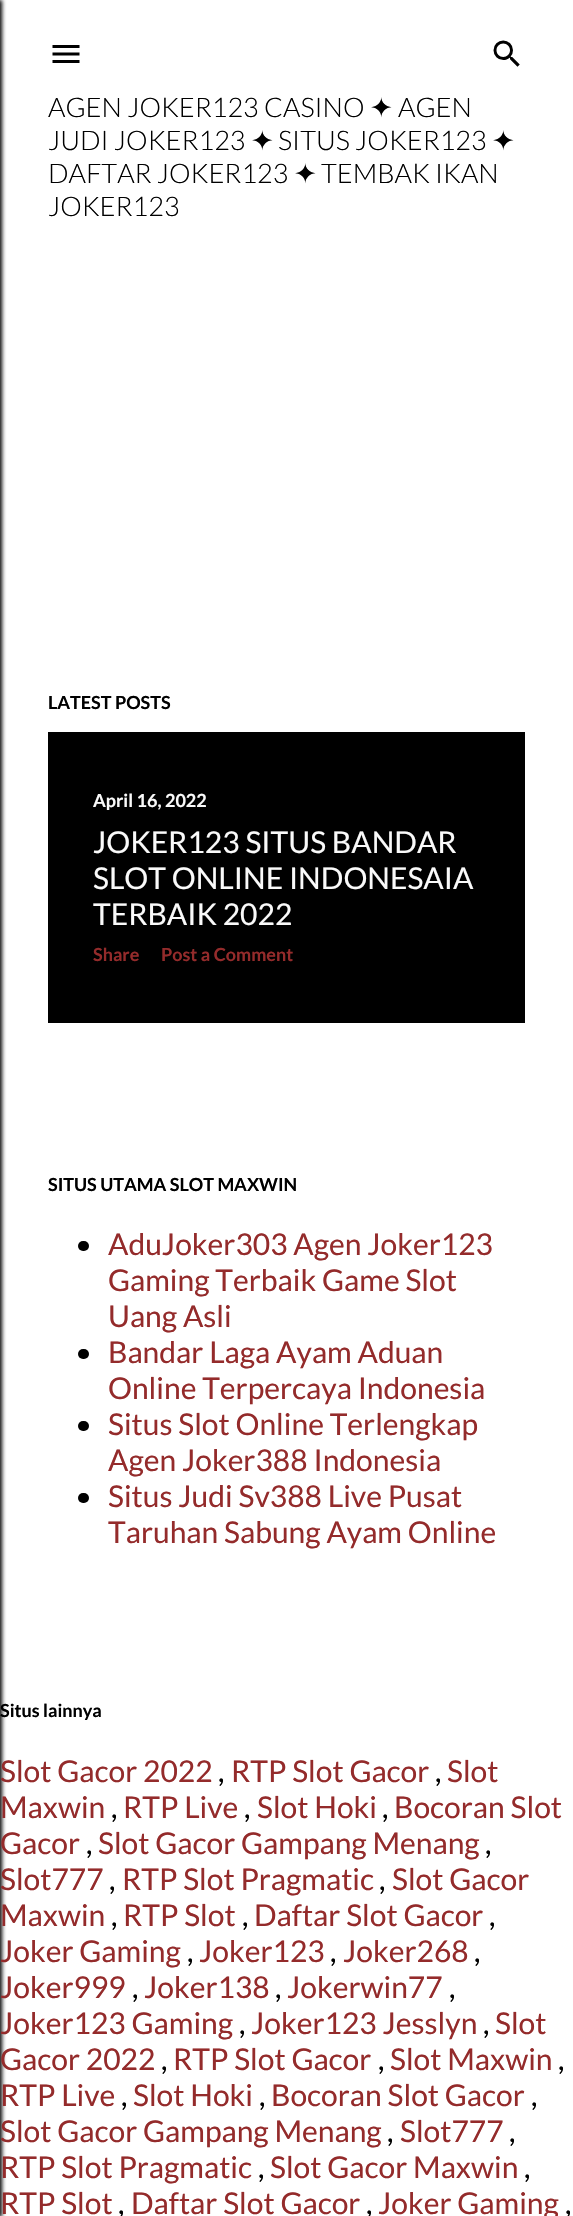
void draw(SkCanvas* canvas) {
	SkPaint paint;
	paint.setAntiAlias(true);
	canvas->clear(0xffffffff);
	paint.setColor(0xff000000);
	paint.setMaskFilter(SkMaskFilter::MakeBlur(kNormal_SkBlurStyle, 2));
	canvas->drawRect(SkRect::MakeXYWH(-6, 0, 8, 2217), paint);
	paint.setMaskFilter(nullptr);
	canvas->drawImageRect(SkImages::DeferredFromEncodedData(SkData::MakeFromFileName("img1.png")), SkRect::MakeXYWH(52, 45, 28, 18), SkSamplingOptions());
	canvas->drawImageRect(SkImages::DeferredFromEncodedData(SkData::MakeFromFileName("img2.png")), SkRect::MakeXYWH(493, 40, 27, 27), SkSamplingOptions());
	SkFont f1(fontMgr->matchFamilyStyle("Lato", SkFontStyle(300, SkFontStyle::kNormal_Width, SkFontStyle::kUpright_Slant)), 27);
	f1.setSubpixel(true);
	canvas->drawString("AGEN JOKER123 CASINO", 48, 117, f1, paint);
	SkFont f2(fontMgr->matchFamilyStyle("DejaVu Sans", SkFontStyle::Normal()), 27);
	f2.setSubpixel(true);
	canvas->drawString("✦", 370, 117, f2, paint);
	canvas->drawString("AGEN", 398, 117, f1, paint);
	canvas->drawString("JUDI JOKER123", 48, 150, f1, paint);
	canvas->drawString("✦", 251, 150, f2, paint);
	canvas->drawString("SITUS JOKER123", 278, 150, f1, paint);
	canvas->drawString("✦", 492, 150, f2, paint);
	canvas->drawString("DAFTAR JOKER123", 48, 183, f1, paint);
	canvas->drawString("✦", 294, 183, f2, paint);
	canvas->drawString("TEMBAK IKAN", 321, 183, f1, paint);
	canvas->drawString("JOKER123", 48, 216, f1, paint);
	SkFont f3(fontMgr->matchFamilyStyle("Lato", SkFontStyle::Bold()), 18);
	f3.setSubpixel(true);
	canvas->drawString("LATEST POSTS", 48, 709, f3, paint);
	canvas->drawRect(SkRect::MakeXYWH(48, 732, 477, 291), paint);
	paint.setColor(0xfffafafa);
	canvas->drawString("April 16, 2022", 93, 807, f3, paint);
	SkFont f4(fontMgr->matchFamilyStyle("Lato", SkFontStyle::Normal()), 30);
	f4.setSubpixel(true);
	canvas->drawString("JOKER123 SITUS BANDAR", 93, 853, f4, paint);
	canvas->drawString("SLOT ONLINE INDONESAIA", 93, 889, f4, paint);
	canvas->drawString("TERBAIK 2022", 93, 925, f4, paint);
	paint.setColor(0xff942b2b);
	canvas->drawString("Share", 93, 961, f3, paint);
	canvas->drawString("Post a Comment", 161, 961, f3, paint);
	paint.setColor(0xff000000);
	canvas->drawString("SITUS UTAMA SLOT MAXWIN", 48, 1191, f3, paint);
	canvas->drawRoundRect(SkRect::MakeXYWH(78, 1241, 11, 10), 5, 5, paint);
	paint.setColor(0xff942b2b);
	canvas->drawString("AduJoker303 Agen Joker123", 108, 1255, f4, paint);
	canvas->drawString("Gaming Terbaik Game Slot", 108, 1291, f4, paint);
	canvas->drawString("Uang Asli", 108, 1327, f4, paint);
	paint.setColor(0xff000000);
	canvas->drawRoundRect(SkRect::MakeXYWH(78, 1349, 11, 10), 5, 5, paint);
	paint.setColor(0xff942b2b);
	canvas->drawString("Bandar Laga Ayam Aduan", 108, 1363, f4, paint);
	canvas->drawString("Online Terpercaya Indonesia", 108, 1399, f4, paint);
	paint.setColor(0xff000000);
	canvas->drawRoundRect(SkRect::MakeXYWH(78, 1421, 11, 10), 5, 5, paint);
	paint.setColor(0xff942b2b);
	canvas->drawString("Situs Slot Online Terlengkap", 108, 1435, f4, paint);
	canvas->drawString("Agen Joker388 Indonesia", 108, 1471, f4, paint);
	paint.setColor(0xff000000);
	canvas->drawRoundRect(SkRect::MakeXYWH(78, 1493, 11, 10), 5, 5, paint);
	paint.setColor(0xff942b2b);
	canvas->drawString("Situs Judi Sv388 Live Pusat", 108, 1507, f4, paint);
	canvas->drawString("Taruhan Sabung Ayam Online", 108, 1543, f4, paint);
	paint.setColor(0xff000000);
	canvas->drawString("Situs lainnya", 0, 1717, f3, paint);
	paint.setColor(0xff942b2b);
	canvas->drawString("Slot Gacor 2022", 0, 1782, f4, paint);
	paint.setColor(0xff000000);
	canvas->drawString(",", 218, 1782, f4, paint);
	paint.setColor(0xff942b2b);
	canvas->drawString("RTP Slot Gacor", 231, 1782, f4, paint);
	paint.setColor(0xff000000);
	canvas->drawString(",", 435, 1782, f4, paint);
	paint.setColor(0xff942b2b);
	canvas->drawString("Slot", 447, 1782, f4, paint);
	canvas->drawString("Maxwin", 0, 1818, f4, paint);
	paint.setColor(0xff000000);
	canvas->drawString(",", 111, 1818, f4, paint);
	paint.setColor(0xff942b2b);
	canvas->drawString("RTP Live", 123, 1818, f4, paint);
	paint.setColor(0xff000000);
	canvas->drawString(",", 244, 1818, f4, paint);
	paint.setColor(0xff942b2b);
	canvas->drawString("Slot Hoki", 257, 1818, f4, paint);
	paint.setColor(0xff000000);
	canvas->drawString(",", 382, 1818, f4, paint);
	paint.setColor(0xff942b2b);
	canvas->drawString("Bocoran Slot", 394, 1818, f4, paint);
	canvas->drawString("Gacor", 0, 1854, f4, paint);
	paint.setColor(0xff000000);
	canvas->drawString(",", 86, 1854, f4, paint);
	paint.setColor(0xff942b2b);
	canvas->drawString("Slot Gacor Gampang Menang", 98, 1854, f4, paint);
	paint.setColor(0xff000000);
	canvas->drawString(",", 485, 1854, f4, paint);
	paint.setColor(0xff942b2b);
	canvas->drawString("Slot777", 0, 1890, f4, paint);
	paint.setColor(0xff000000);
	canvas->drawString(",", 109, 1890, f4, paint);
	paint.setColor(0xff942b2b);
	canvas->drawString("RTP Slot Pragmatic", 122, 1890, f4, paint);
	paint.setColor(0xff000000);
	canvas->drawString(",", 379, 1890, f4, paint);
	paint.setColor(0xff942b2b);
	canvas->drawString("Slot Gacor", 392, 1890, f4, paint);
	canvas->drawString("Maxwin", 0, 1926, f4, paint);
	paint.setColor(0xff000000);
	canvas->drawString(",", 111, 1926, f4, paint);
	paint.setColor(0xff942b2b);
	canvas->drawString("RTP Slot", 123, 1926, f4, paint);
	paint.setColor(0xff000000);
	canvas->drawString(",", 242, 1926, f4, paint);
	paint.setColor(0xff942b2b);
	canvas->drawString("Daftar Slot Gacor", 254, 1926, f4, paint);
	paint.setColor(0xff000000);
	canvas->drawString(",", 489, 1926, f4, paint);
	paint.setColor(0xff942b2b);
	canvas->drawString("Joker Gaming", 0, 1962, f4, paint);
	paint.setColor(0xff000000);
	canvas->drawString(",", 187, 1962, f4, paint);
	paint.setColor(0xff942b2b);
	canvas->drawString("Joker123", 199, 1962, f4, paint);
	paint.setColor(0xff000000);
	canvas->drawString(",", 330, 1962, f4, paint);
	paint.setColor(0xff942b2b);
	canvas->drawString("Joker268", 343, 1962, f4, paint);
	paint.setColor(0xff000000);
	canvas->drawString(",", 474, 1962, f4, paint);
	paint.setColor(0xff942b2b);
	canvas->drawString("Joker999", 0, 1998, f4, paint);
	paint.setColor(0xff000000);
	canvas->drawString(",", 132, 1998, f4, paint);
	paint.setColor(0xff942b2b);
	canvas->drawString("Joker138", 144, 1998, f4, paint);
	paint.setColor(0xff000000);
	canvas->drawString(",", 275, 1998, f4, paint);
	paint.setColor(0xff942b2b);
	canvas->drawString("Jokerwin77", 287, 1998, f4, paint);
	paint.setColor(0xff000000);
	canvas->drawString(",", 449, 1998, f4, paint);
	paint.setColor(0xff942b2b);
	canvas->drawString("Joker123 Gaming", 0, 2034, f4, paint);
	paint.setColor(0xff000000);
	canvas->drawString(",", 239, 2034, f4, paint);
	paint.setColor(0xff942b2b);
	canvas->drawString("Joker123 Jesslyn", 251, 2034, f4, paint);
	paint.setColor(0xff000000);
	canvas->drawString(",", 483, 2034, f4, paint);
	paint.setColor(0xff942b2b);
	canvas->drawString("Slot", 495, 2034, f4, paint);
	canvas->drawString("Gacor 2022", 0, 2070, f4, paint);
	paint.setColor(0xff000000);
	canvas->drawString(",", 161, 2070, f4, paint);
	paint.setColor(0xff942b2b);
	canvas->drawString("RTP Slot Gacor", 173, 2070, f4, paint);
	paint.setColor(0xff000000);
	canvas->drawString(",", 378, 2070, f4, paint);
	paint.setColor(0xff942b2b);
	canvas->drawString("Slot Maxwin", 390, 2070, f4, paint);
	paint.setColor(0xff000000);
	canvas->drawString(",", 558, 2070, f4, paint);
	paint.setColor(0xff942b2b);
	canvas->drawString("RTP Live", 0, 2106, f4, paint);
	paint.setColor(0xff000000);
	canvas->drawString(",", 121, 2106, f4, paint);
	paint.setColor(0xff942b2b);
	canvas->drawString("Slot Hoki", 133, 2106, f4, paint);
	paint.setColor(0xff000000);
	canvas->drawString(",", 259, 2106, f4, paint);
	paint.setColor(0xff942b2b);
	canvas->drawString("Bocoran Slot Gacor", 271, 2106, f4, paint);
	paint.setColor(0xff000000);
	canvas->drawString(",", 531, 2106, f4, paint);
	paint.setColor(0xff942b2b);
	canvas->drawString("Slot Gacor Gampang Menang", 0, 2142, f4, paint);
	paint.setColor(0xff000000);
	canvas->drawString(",", 387, 2142, f4, paint);
	paint.setColor(0xff942b2b);
	canvas->drawString("Slot777", 400, 2142, f4, paint);
	paint.setColor(0xff000000);
	canvas->drawString(",", 509, 2142, f4, paint);
	paint.setColor(0xff942b2b);
	canvas->drawString("RTP Slot Pragmatic", 0, 2178, f4, paint);
	paint.setColor(0xff000000);
	canvas->drawString(",", 258, 2178, f4, paint);
	paint.setColor(0xff942b2b);
	canvas->drawString("Slot Gacor Maxwin", 270, 2178, f4, paint);
	paint.setColor(0xff000000);
	canvas->drawString(",", 524, 2178, f4, paint);
	paint.setColor(0xff942b2b);
	canvas->drawString("RTP Slot", 0, 2214, f4, paint);
	paint.setColor(0xff000000);
	canvas->drawString(",", 118, 2214, f4, paint);
	paint.setColor(0xff942b2b);
	canvas->drawString("Daftar Slot Gacor", 131, 2214, f4, paint);
	paint.setColor(0xff000000);
	canvas->drawString(",", 366, 2214, f4, paint);
	paint.setColor(0xff942b2b);
	canvas->drawString("Joker Gaming", 378, 2214, f4, paint);
	paint.setColor(0xff000000);
	canvas->drawString(",", 565, 2214, f4, paint);
}
